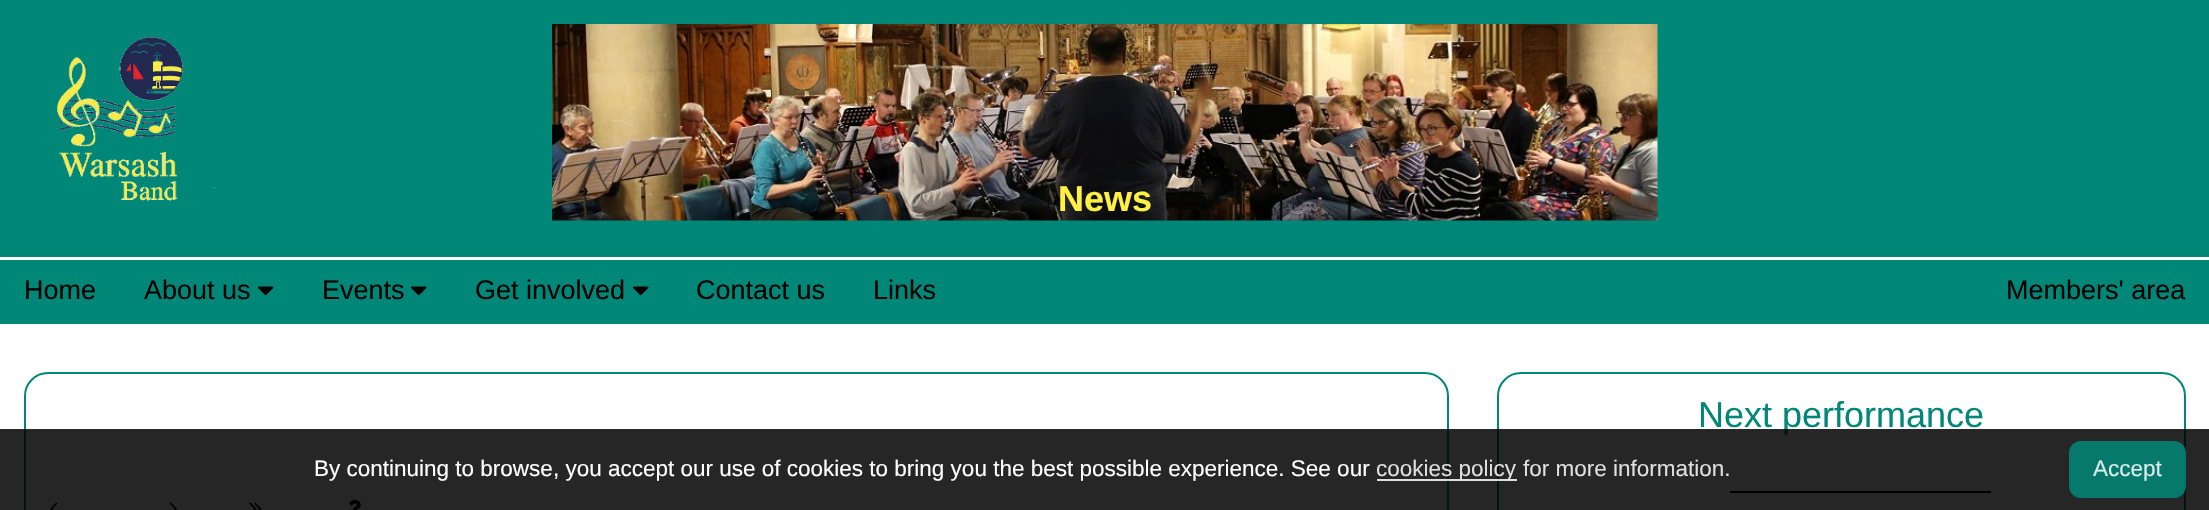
void draw(SkCanvas* canvas) {
	SkPaint paint;
	paint.setAntiAlias(true);
	canvas->clear(0xffffffff);
	paint.setColor(0xff008778);
	canvas->drawRect(SkRect::MakeXYWH(0, 0, 2209, 257), paint);
	canvas->drawImageRect(SkImages::DeferredFromEncodedData(SkData::MakeFromFileName("img1.png")), SkRect::MakeXYWH(57, 37, 159, 164), SkSamplingOptions());
	canvas->drawImageRect(SkImages::DeferredFromEncodedData(SkData::MakeFromFileName("img2.png")), SkRect::MakeXYWH(552, 24, 1106, 197), SkSamplingOptions());
	SkFont f1(fontMgr->matchFamilyStyle("Liberation Sans", SkFontStyle::Bold()), 36);
	f1.setSubpixel(true);
	paint.setColor(0xfffff043);
	canvas->drawString("News", 1058, 211, f1, paint);
	paint.setColor(0xff008778);
	canvas->drawRect(SkRect::MakeXYWH(0, 260, 2209, 64), paint);
	SkFont f2(fontMgr->matchFamilyStyle("Liberation Sans", SkFontStyle::Normal()), 27);
	f2.setSubpixel(true);
	paint.setColor(0xff000000);
	canvas->drawString("Home", 24, 299, f2, paint);
	canvas->drawString("About us", 144, 299, f2, paint);
	canvas->drawImageRect(SkImages::DeferredFromEncodedData(SkData::MakeFromFileName("img3.png")), SkRect::MakeXYWH(258, 286, 16, 10), SkSamplingOptions());
	canvas->drawString("Events", 322, 299, f2, paint);
	canvas->drawImageRect(SkImages::DeferredFromEncodedData(SkData::MakeFromFileName("img3.png")), SkRect::MakeXYWH(411, 286, 16, 10), SkSamplingOptions());
	canvas->drawString("Get involved", 475, 299, f2, paint);
	canvas->drawImageRect(SkImages::DeferredFromEncodedData(SkData::MakeFromFileName("img3.png")), SkRect::MakeXYWH(633, 286, 16, 10), SkSamplingOptions());
	canvas->drawString("Contact us", 696, 299, f2, paint);
	canvas->drawString("Links", 873, 299, f2, paint);
	canvas->drawString("Members' area", 2006, 299, f2, paint);
	paint.setStroke(true);
	paint.setStrokeWidth(2);
	paint.setColor(0xff008778);
	canvas->drawRoundRect(SkRect::MakeXYWH(25, 373, 1423, 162), 23, 23, paint);
	canvas->drawImageRect(SkImages::DeferredFromEncodedData(SkData::MakeFromFileName("img4.png")), SkRect::MakeXYWH(50, 502, 8, 8), SkSamplingOptions());
	canvas->drawImageRect(SkImages::DeferredFromEncodedData(SkData::MakeFromFileName("img5.png")), SkRect::MakeXYWH(169, 502, 8, 8), SkSamplingOptions());
	canvas->drawImageRect(SkImages::DeferredFromEncodedData(SkData::MakeFromFileName("img6.png")), SkRect::MakeXYWH(249, 502, 13, 8), SkSamplingOptions());
	canvas->drawImageRect(SkImages::DeferredFromEncodedData(SkData::MakeFromFileName("img7.png")), SkRect::MakeXYWH(349, 499, 12, 11), SkSamplingOptions());
	canvas->drawRoundRect(SkRect::MakeXYWH(1498, 373, 687, 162), 23, 23, paint);
	SkFont f3(fontMgr->matchFamilyStyle("Liberation Sans", SkFontStyle::Normal()), 36);
	f3.setSubpixel(true);
	paint.setStroke(false);
	canvas->drawString("Next performance", 1698, 427, f3, paint);
	paint.setColor(0xff000000);
	canvas->drawRect(SkRect::MakeXYWH(1730, 491, 261, 2), paint);
	paint.setColor(0xd9000000);
	canvas->drawRect(SkRect::MakeXYWH(0, 429, 2209, 81), paint);
	SkFont f4(fontMgr->matchFamilyStyle("Liberation Sans", SkFontStyle::Normal()), 22.5);
	f4.setSubpixel(true);
	paint.setColor(0xffffffff);
	canvas->drawString("By continuing to browse, you accept our use of cookies to bring you the best possible experience. See our", 314, 476, f4, paint);
	paint.setColor(0xd9ffffff);
	canvas->drawRect(SkRect::MakeXYWH(1377, 479, 140, 2), paint);
	paint.setColor(0xffdfdfdf);
	canvas->drawString("cookies policy", 1376, 476, f4, paint);
	canvas->drawString("for more information.", 1523, 476, f4, paint);
	paint.setColor(0xd9008778);
	canvas->drawRoundRect(SkRect::MakeXYWH(2069, 441, 117, 57), 12, 12, paint);
	paint.setColor(0xffdaebe9);
	canvas->drawString("Accept", 2093, 476, f4, paint);
}
